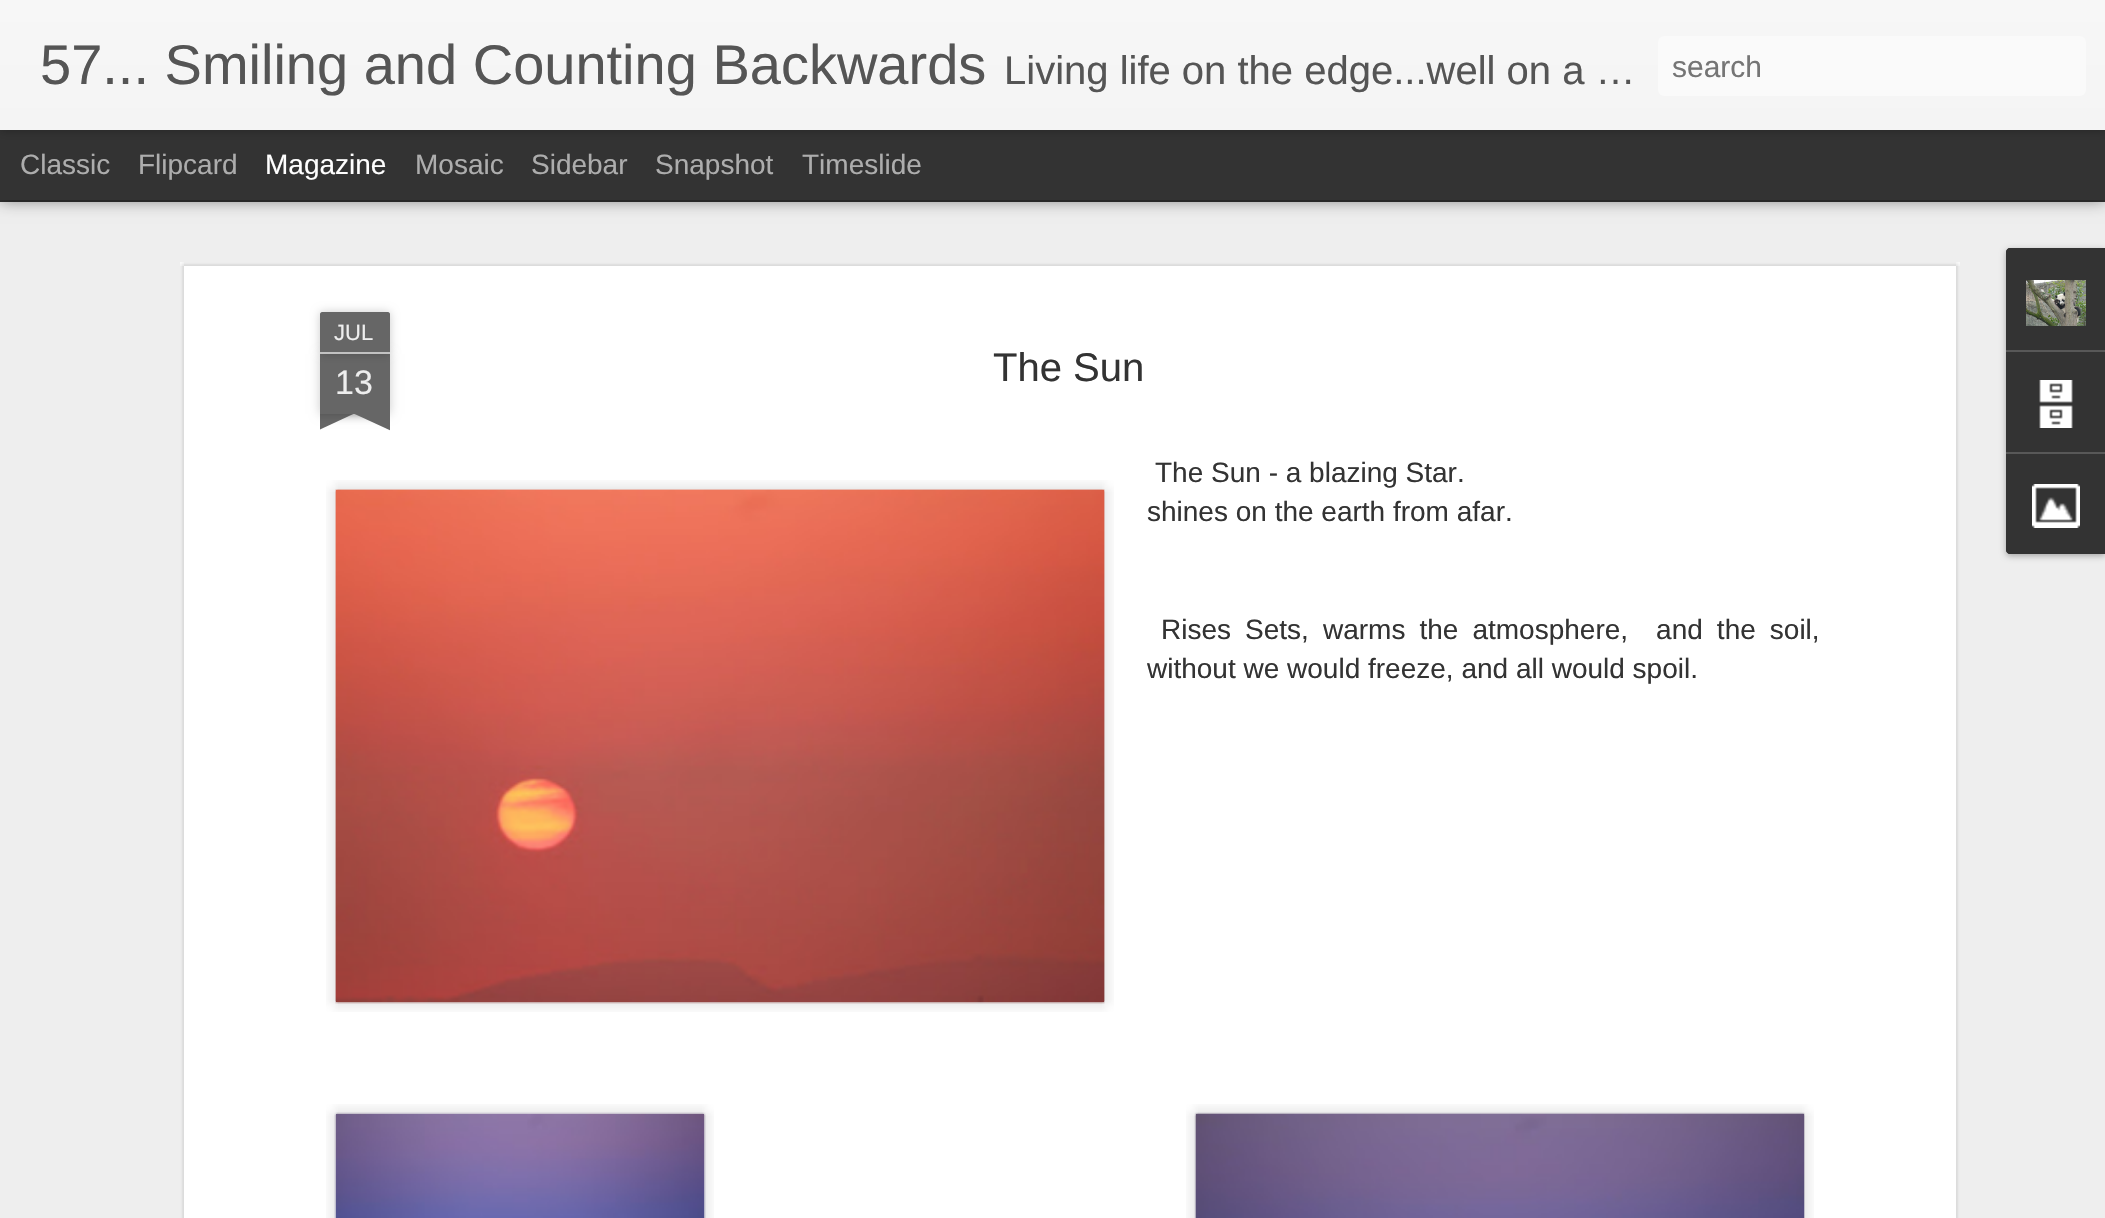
void draw(SkCanvas* canvas) {
	SkPaint paint;
	paint.setAntiAlias(true);
	auto spacedText = [&](const char* s, float x, float y, const SkFont& font, const SkPaint& ink, float letter, float word) {
		std::vector<SkGlyphID> glyphs(font.countText(s, strlen(s), SkTextEncoding::kUTF8));
		std::vector<float> xs(glyphs.size());
		font.textToGlyphs(s, strlen(s), SkTextEncoding::kUTF8, glyphs);
		font.getXPos(glyphs, xs, x);
		float extra = 0;
		for (size_t i = 0; i < glyphs.size(); i++) {
			xs[i] += extra;
			extra += letter + word * (glyphs[i] == font.unicharToGlyph(' '));
		}
		canvas->drawTextBlob(SkTextBlob::MakeFromPosHGlyphs(glyphs, xs, y, font), 0, 0, ink);
	};
	auto svgPath = [&](const char* data, bool evenOdd = false) {
		SkPath result = *SkParsePath::FromSVGString(data);
		if (evenOdd) result.setFillType(SkPathFillType::kEvenOdd);
		return result;
	};
	canvas->clear(0xff333333);
	paint.setColor(0xffeeeeee);
	canvas->drawRect(SkRect::MakeXYWH(0, 202, 2105, 1016), paint);
	paint.setColor(0x80000000);
	paint.setMaskFilter(SkMaskFilter::MakeBlur(kNormal_SkBlurStyle, 8));
	canvas->drawRect(SkRect::MakeXYWH(0, 130, 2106, 70), paint);
	paint.setMaskFilter(nullptr);
	paint.setColor(0xff333333);
	canvas->drawRect(SkRect::MakeXYWH(0, 130, 2105, 70), paint);
	paint.setColor(0x4d000000);
	paint.setMaskFilter(SkMaskFilter::MakeBlur(kNormal_SkBlurStyle, 5));
	canvas->drawRect(SkRect::MakeXYWH(0, 0, 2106, 130), paint);
	paint.setMaskFilter(nullptr);
	{
		const SkColor colors[] = {0xfff7f7f7, 0xfff4f4f4};
		const float stops[] = {0, 1};
		const SkPoint ends[] = {{0, 0}, {0, 130}};
		paint.setShader(SkGradientShader::MakeLinear(ends, colors, stops, 2, SkTileMode::kClamp));
		paint.setAlpha(255);
	}
	canvas->drawRect(SkRect::MakeXYWH(0, 0, 2105, 130), paint);
	SkFont f1(fontMgr->matchFamilyStyle("Liberation Sans", SkFontStyle::Normal()), 56);
	f1.setSubpixel(true);
	paint.setShader(nullptr);
	paint.setColor(0xff555555);
	canvas->drawString("57... Smiling and Counting Backwards", 40, 84, f1, paint);
	SkFont f2(fontMgr->matchFamilyStyle("Liberation Sans", SkFontStyle::Normal()), 40);
	f2.setSubpixel(true);
	canvas->drawString("Living life on the edge...well on a …", 1004, 84, f2, paint);
	paint.setColor(0xfffafafa);
	canvas->drawRoundRect(SkRect::MakeXYWH(1658, 36, 428, 60), 6, 6, paint);
	SkFont f3(fontMgr->matchFamilyStyle("Liberation Sans", SkFontStyle::Normal()), 30);
	f3.setSubpixel(true);
	paint.setColor(0xff757575);
	canvas->drawString("search", 1672, 77, f3, paint);
	SkFont f4(fontMgr->matchFamilyStyle("Liberation Sans", SkFontStyle::Normal()), 28);
	f4.setSubpixel(true);
	paint.setColor(0xffadadad);
	canvas->drawString("Classic", 20, 174, f4, paint);
	canvas->drawString("Flipcard", 138, 174, f4, paint);
	paint.setColor(0xffffffff);
	canvas->drawString("Magazine", 265, 174, f4, paint);
	paint.setColor(0xffadadad);
	canvas->drawString("Mosaic", 415, 174, f4, paint);
	canvas->drawString("Sidebar", 531, 174, f4, paint);
	canvas->drawString("Snapshot", 655, 174, f4, paint);
	canvas->drawString("Timeslide", 802, 174, f4, paint);
	paint.setColor(0xffffffff);
	canvas->drawRect(SkRect::MakeXYWH(180, 262, 1780, 956), paint);
	canvas->drawImageRect(SkImages::DeferredFromEncodedData(SkData::MakeFromFileName("img1.png")), SkRect::MakeXYWH(180, 262, 1780, 956), SkSamplingOptions());
	paint.setColor(0x33000000);
	paint.setMaskFilter(SkMaskFilter::MakeBlur(kNormal_SkBlurStyle, 5));
	canvas->drawRect(SkRect::MakeXYWH(320, 354, 70, 60), paint);
	paint.setMaskFilter(nullptr);
	paint.setColor(0xff666666);
	canvas->drawRect(SkRect::MakeXYWH(320, 354, 70, 60), paint);
	paint.setColor(0x33000000);
	paint.setMaskFilter(SkMaskFilter::MakeBlur(kNormal_SkBlurStyle, 5));
	canvas->drawRoundRect(SkRect::MakeXYWH(320, 312, 70, 42), 2, 2, paint);
	paint.setMaskFilter(nullptr);
	paint.setColor(0xff666666);
	canvas->drawPath(svgPath("M322 312H388C389 312 390 313 390 314V354H320V314C320 313 321 312 322 312Z"), paint);
	paint.setColor(0xffc2c2c2);
	canvas->drawRect(SkRect::MakeXYWH(320, 352, 70, 2), paint);
	SkFont f5(fontMgr->matchFamilyStyle("Liberation Sans", SkFontStyle::Normal()), 22);
	f5.setSubpixel(true);
	paint.setColor(0xffeeeeee);
	canvas->drawString("JUL", 334, 340, f5, paint);
	SkFont f6(fontMgr->matchFamilyStyle("Liberation Sans", SkFontStyle::Normal()), 34);
	f6.setSubpixel(true);
	canvas->drawString("13", 335, 394, f6, paint);
	canvas->save();
	canvas->clipRect(SkRect::MakeXYWH(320, 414, 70, 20));
	paint.setColor(0x33000000);
	paint.setMaskFilter(SkMaskFilter::MakeBlur(kNormal_SkBlurStyle, 5));
	canvas->drawRect(SkRect::MakeXYWH(302, 394, 100, 20), paint);
	paint.setMaskFilter(nullptr);
	canvas->restore();
	canvas->save();
	canvas->clipRect(SkRect::MakeXYWH(320, 414, 70, 20));
	paint.setColor(0xff666666);
	canvas->drawPath(svgPath("M301 416L392 374L401 392L310 434Z"), paint);
	canvas->restore();
	canvas->save();
	canvas->clipRect(SkRect::MakeXYWH(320, 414, 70, 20));
	paint.setColor(0x33000000);
	paint.setMaskFilter(SkMaskFilter::MakeBlur(kNormal_SkBlurStyle, 5));
	canvas->drawRect(SkRect::MakeXYWH(308, 394, 100, 20), paint);
	paint.setMaskFilter(nullptr);
	canvas->restore();
	canvas->save();
	canvas->clipRect(SkRect::MakeXYWH(320, 414, 70, 20));
	paint.setColor(0xff666666);
	canvas->drawPath(svgPath("M316 374L407 416L398 434L307 392Z"), paint);
	canvas->restore();
	paint.setColor(0xff333333);
	canvas->drawString("The Sun", 993, 381, f2, paint);
	canvas->drawString("The Sun - a blazing Star.", 1155, 482, f4, paint);
	canvas->drawImageRect(SkImages::DeferredFromEncodedData(SkData::MakeFromFileName("img2.png")), SkRect::MakeXYWH(326, 480, 788, 532), SkSamplingOptions());
	canvas->drawImageRect(SkImages::DeferredFromEncodedData(SkData::MakeFromFileName("img3.png")), SkRect::MakeXYWH(335, 489, 770, 515), SkSamplingOptions());
	canvas->drawString("shines on the earth from afar.", 1147, 521, f4, paint);
	spacedText("Rises Sets,", 1161, 639, f4, paint, 0, 6.25);
	spacedText("warms the atmosphere,  and the soil,", 1323, 639, f4, paint, 0, 6.25);
	canvas->drawString("without we would freeze, and all would spoil.", 1147, 678, f4, paint);
	canvas->drawImageRect(SkImages::DeferredFromEncodedData(SkData::MakeFromFileName("img4.png")), SkRect::MakeXYWH(326, 1104, 388, 114), SkSamplingOptions());
	canvas->drawImageRect(SkImages::DeferredFromEncodedData(SkData::MakeFromFileName("img5.png")), SkRect::MakeXYWH(334, 1112, 372, 106), SkSamplingOptions());
	canvas->drawImageRect(SkImages::DeferredFromEncodedData(SkData::MakeFromFileName("img6.png")), SkRect::MakeXYWH(1186, 1104, 628, 114), SkSamplingOptions());
	canvas->drawImageRect(SkImages::DeferredFromEncodedData(SkData::MakeFromFileName("img7.png")), SkRect::MakeXYWH(1194, 1112, 611, 106), SkSamplingOptions());
	paint.setColor(0x4d000000);
	paint.setMaskFilter(SkMaskFilter::MakeBlur(kNormal_SkBlurStyle, 3));
	canvas->drawRoundRect(SkRect::MakeXYWH(2006, 250, 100, 306), 4, 4, paint);
	paint.setMaskFilter(nullptr);
	paint.setColor(0xff333333);
	canvas->drawPath(svgPath("M2010 248H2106V554H2010C2008 554 2006 552 2006 550V252C2006 250 2008 248 2010 248Z"), paint);
	canvas->drawPath(svgPath("M2010 248H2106V350H2006V252C2006 250 2008 248 2010 248Z"), paint);
	canvas->drawImageRect(SkImages::DeferredFromEncodedData(SkData::MakeFromFileName("img8.png")), SkRect::MakeXYWH(2026, 280, 60, 46), SkSamplingOptions());
	paint.setColor(0xff585858);
	canvas->drawRect(SkRect::MakeXYWH(2006, 350, 99, 2), paint);
	canvas->drawImageRect(SkImages::DeferredFromEncodedData(SkData::MakeFromFileName("img9.png")), SkRect::MakeXYWH(2039, 380, 34, 48), SkSamplingOptions());
	paint.setColor(0xff333333);
	canvas->drawPath(svgPath("M2006 452H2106V554H2010C2008 554 2006 552 2006 550Z"), paint);
	paint.setColor(0xff585858);
	canvas->drawRect(SkRect::MakeXYWH(2006, 452, 99, 2), paint);
	canvas->drawImageRect(SkImages::DeferredFromEncodedData(SkData::MakeFromFileName("img10.png")), SkRect::MakeXYWH(2032, 484, 48, 44), SkSamplingOptions());
}
